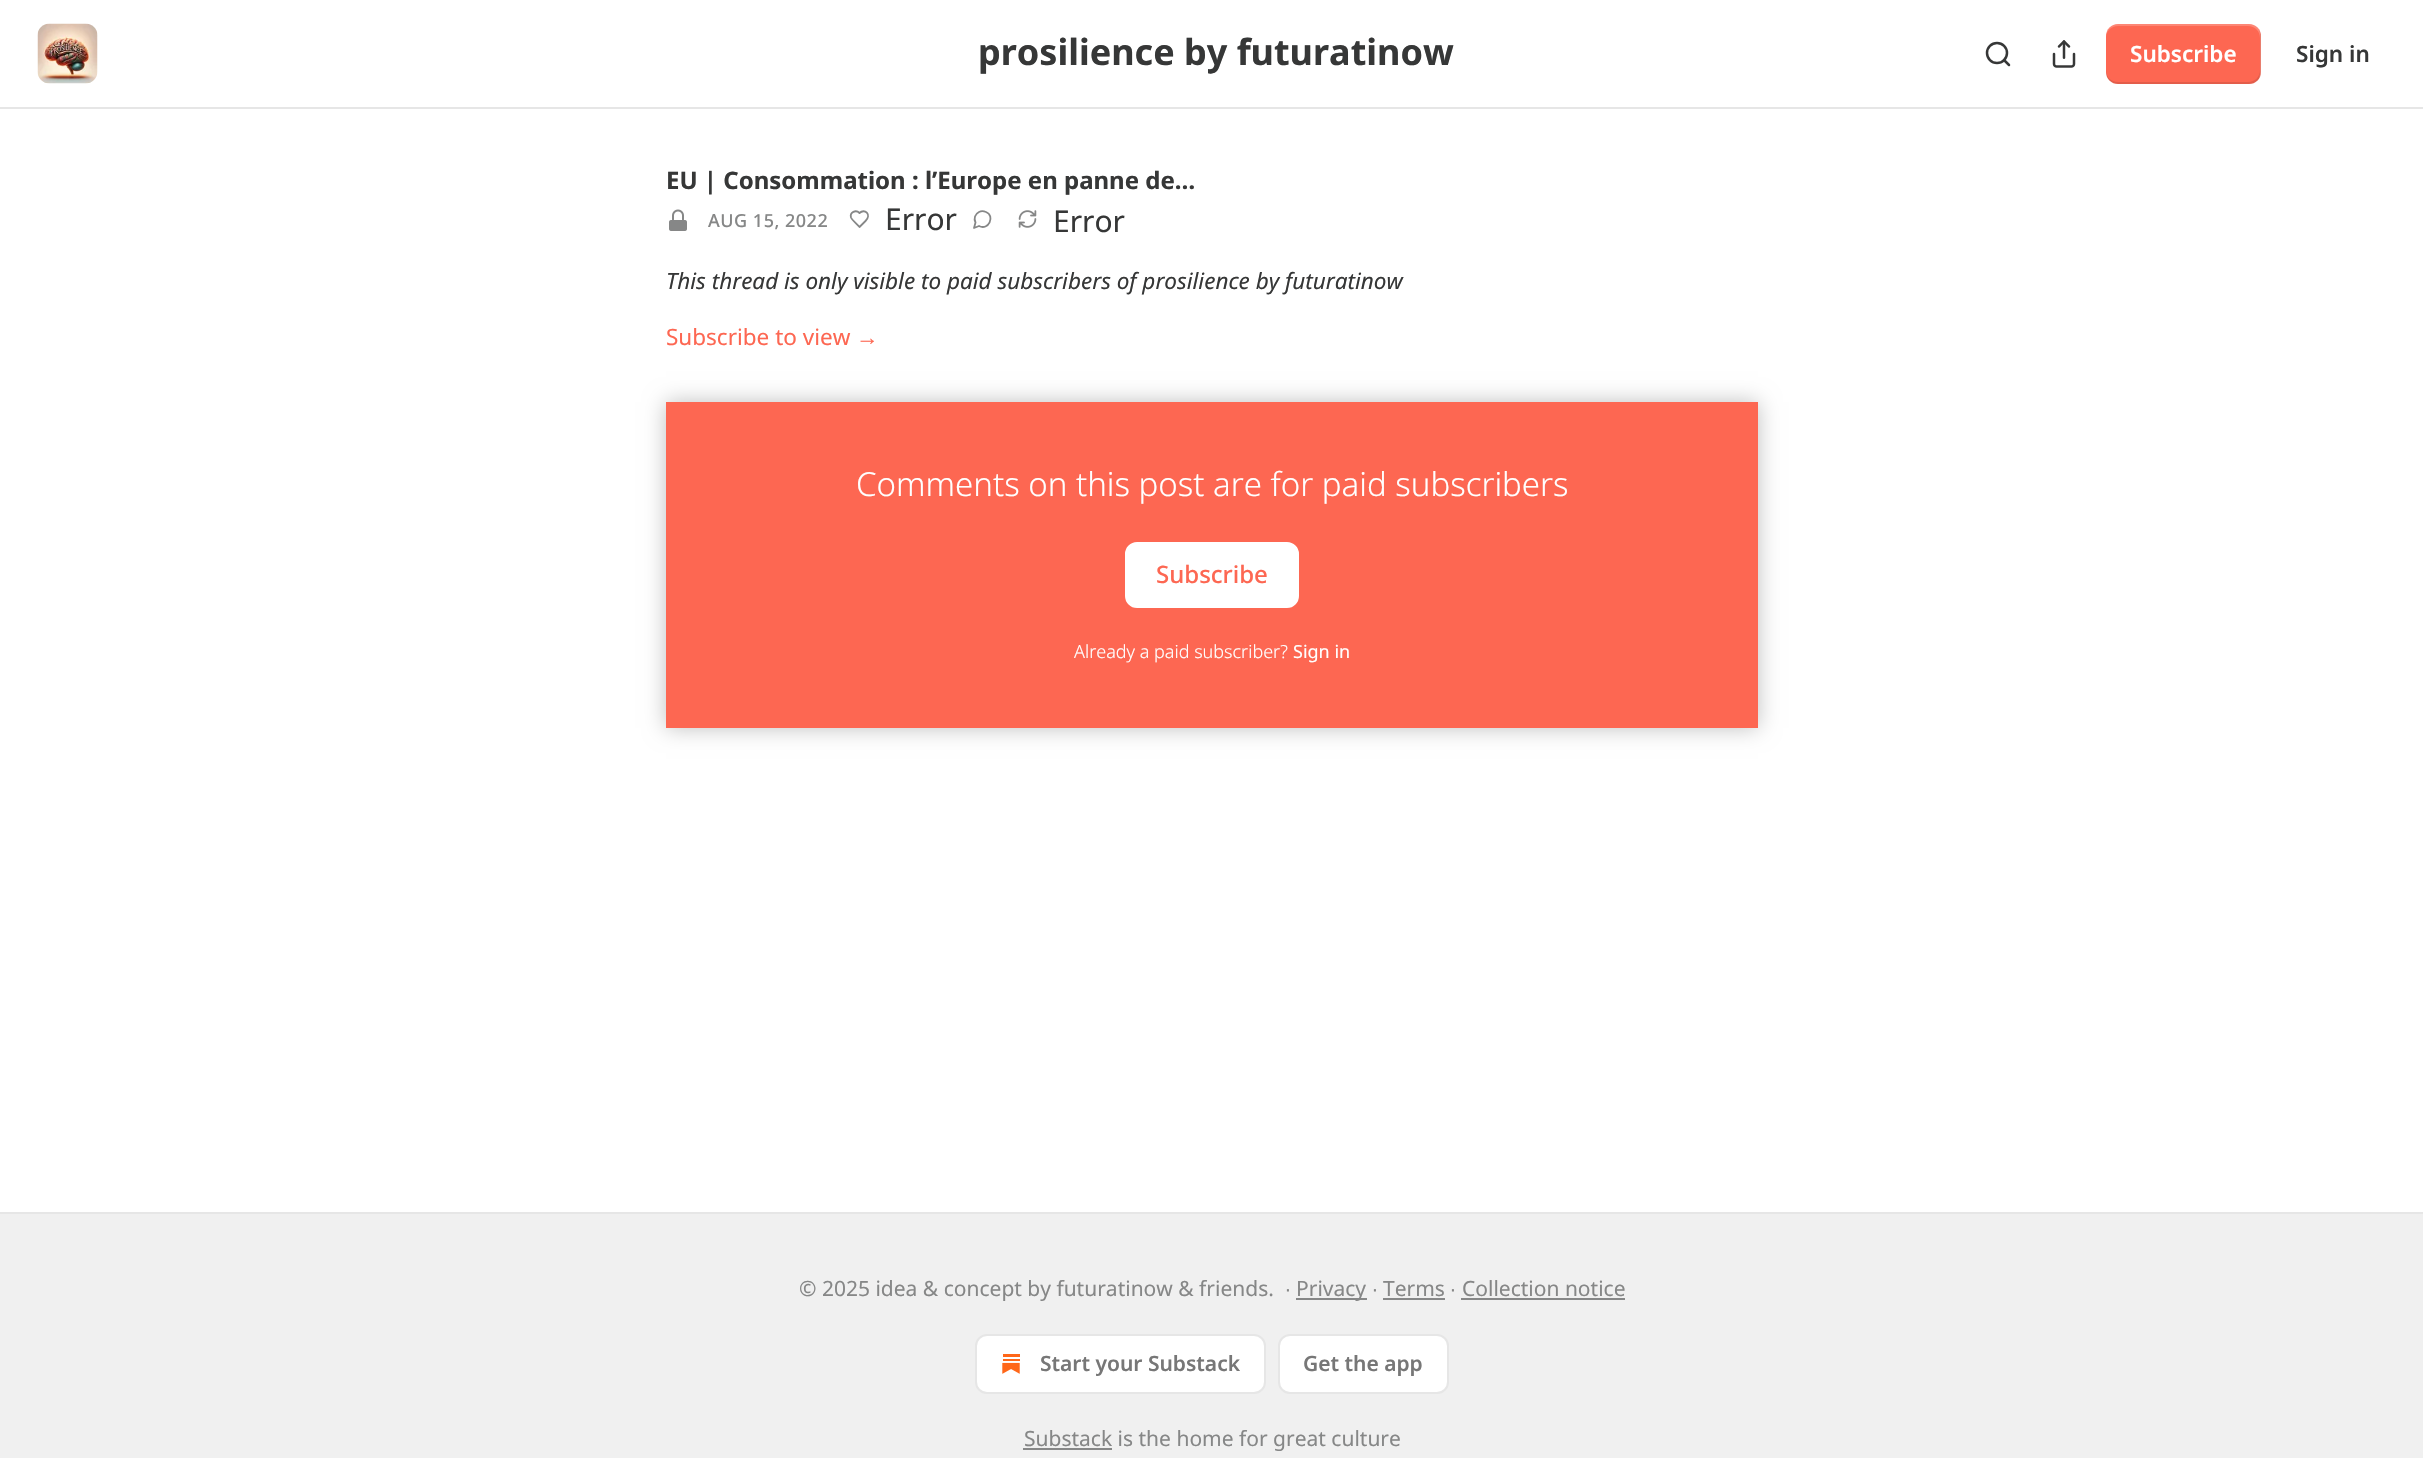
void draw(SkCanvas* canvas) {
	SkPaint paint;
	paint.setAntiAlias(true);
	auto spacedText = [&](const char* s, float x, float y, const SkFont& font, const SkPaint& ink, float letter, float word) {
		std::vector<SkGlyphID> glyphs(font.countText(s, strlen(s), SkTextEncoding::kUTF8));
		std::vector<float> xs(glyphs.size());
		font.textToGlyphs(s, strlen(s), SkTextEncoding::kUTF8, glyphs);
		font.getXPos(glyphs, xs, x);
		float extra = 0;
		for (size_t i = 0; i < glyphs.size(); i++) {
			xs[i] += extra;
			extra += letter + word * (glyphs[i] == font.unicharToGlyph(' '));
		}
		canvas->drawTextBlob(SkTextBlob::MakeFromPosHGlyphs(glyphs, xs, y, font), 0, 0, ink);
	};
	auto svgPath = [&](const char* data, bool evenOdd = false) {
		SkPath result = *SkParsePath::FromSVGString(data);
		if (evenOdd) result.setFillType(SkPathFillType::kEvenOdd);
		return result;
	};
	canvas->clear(0xffffffff);
	paint.setColor(0xffe6e6e6);
	canvas->drawRect(SkRect::MakeXYWH(0, 107, 2423, 2), paint);
	canvas->drawImageRect(SkImages::DeferredFromEncodedData(SkData::MakeFromFileName("img1.png")), SkRect::MakeXYWH(37, 23, 61, 61), SkSamplingOptions());
	SkFont f1(fontMgr->matchFamilyStyle("Noto Sans", SkFontStyle::Bold()), 36);
	f1.setSubpixel(true);
	paint.setColor(0xff363737);
	canvas->drawString("prosilience by futuratinow", 978, 65, f1, paint);
	paint.setStroke(true);
	paint.setStrokeWidth(2.5);
	canvas->drawCircle(1997, 53, 10, paint);
	paint.setStrokeCap(SkPaint::kRound_Cap);
	paint.setStrokeJoin(SkPaint::kRound_Join);
	canvas->drawPath(svgPath("M2009 65L2004 60"), paint);
	canvas->drawImageRect(SkImages::DeferredFromEncodedData(SkData::MakeFromFileName("img2.png")), SkRect::MakeXYWH(2052, 40, 24, 28), SkSamplingOptions());
	paint.setStroke(false);
	paint.setColor(0xfffd6752);
	canvas->drawRoundRect(SkRect::MakeXYWH(2106, 24, 155, 60), 12, 12, paint);
	paint.setColor(0x1a000000);
	canvas->drawPath(svgPath("M2106 70V72C2106 79 2111 84 2118 84H2249C2256 84 2261 79 2261 72V36C2261 34 2260 31 2259 29L2260 34V70C2260 77 2255 82 2248 82H2118C2111 82 2106 77 2106 70Z"), paint);
	paint.setColor(0x33ffffff);
	canvas->drawPath(svgPath("M2118 26H2248C2255 26 2260 31 2260 38V74L2259 79C2260 77 2261 74 2261 72V36C2261 29 2256 24 2249 24H2118C2111 24 2106 29 2106 36V38C2106 31 2111 26 2118 26Z"), paint);
	SkFont f2(fontMgr->matchFamilyStyle("Noto Sans", SkFontStyle(600, SkFontStyle::kNormal_Width, SkFontStyle::kUpright_Slant)), 22.5);
	f2.setSubpixel(true);
	paint.setColor(0xffffffff);
	canvas->drawString("Subscribe", 2130, 62, f2, paint);
	paint.setColor(0xff363737);
	canvas->drawString("Sign in", 2296, 62, f2, paint);
	SkFont f3(fontMgr->matchFamilyStyle("Noto Sans", SkFontStyle::Bold()), 24);
	f3.setSubpixel(true);
	canvas->drawString("EU | Consommation : l’Europe en panne de…", 666, 189, f3, paint);
	canvas->drawImageRect(SkImages::DeferredFromEncodedData(SkData::MakeFromFileName("img3.png")), SkRect::MakeXYWH(669, 209, 18, 22), SkSamplingOptions());
	SkFont f4(fontMgr->matchFamilyStyle("Noto Sans", SkFontStyle(500, SkFontStyle::kNormal_Width, SkFontStyle::kUpright_Slant)), 18);
	f4.setSubpixel(true);
	paint.setColor(0xff868787);
	spacedText("AUG 15, 2022", 708, 227, f4, paint, 0.5, 0);
	paint.setStroke(true);
	paint.setStrokeWidth(1.8);
	canvas->drawPath(svgPath("M865.5 221C872 214.5 864.5 208 859.5 213C856 209.5 849.5 212 851 217.5C852 220 857.5 224.5 859.5 227Z"), paint);
	SkFont f5(fontMgr->matchFamilyStyle("Noto Sans", SkFontStyle::Normal()), 30);
	f5.setSubpixel(true);
	paint.setStroke(false);
	paint.setColor(0xff363737);
	canvas->drawString("Error", 885, 230, f5, paint);
	paint.setStroke(true);
	paint.setColor(0xff868787);
	canvas->drawPath(svgPath("M979 226C988.5 231 995.5 216 986 212C983.5 211 981 211 979 212C975 214 973.5 218.5 975.5 222.5L974 228Z"), paint);
	canvas->drawImageRect(SkImages::DeferredFromEncodedData(SkData::MakeFromFileName("img4.png")), SkRect::MakeXYWH(1018, 210, 19, 18), SkSamplingOptions());
	paint.setStroke(false);
	paint.setColor(0xff363737);
	canvas->drawString("Error", 1053, 232, f5, paint);
	SkFont f6(fontMgr->matchFamilyStyle("Noto Sans", SkFontStyle::Italic()), 22.5);
	f6.setSubpixel(true);
	canvas->drawString("This thread is only visible to paid subscribers of prosilience by futuratinow", 666, 289, f6, paint);
	SkFont f7(fontMgr->matchFamilyStyle("Noto Sans", SkFontStyle::Normal()), 22.5);
	f7.setSubpixel(true);
	paint.setColor(0xfffd6752);
	canvas->drawString("Subscribe to view", 666, 345, f7, paint);
	SkFont f8(fontMgr->matchFamilyStyle("Liberation Sans", SkFontStyle::Normal()), 22.5);
	f8.setSubpixel(true);
	canvas->drawString("→", 856, 345, f8, paint);
	canvas->drawRect(SkRect::MakeXYWH(666, 402, 1092, 326), paint);
	paint.setColor(0xffffffff);
	canvas->drawRoundRect(SkRect::MakeXYWH(1126, 543, 172, 64), 11, 11, paint);
	paint.setStroke(true);
	paint.setStrokeWidth(2);
	paint.setStrokeCap(SkPaint::kButt_Cap);
	paint.setStrokeJoin(SkPaint::kMiter_Join);
	canvas->drawRoundRect(SkRect::MakeXYWH(1126, 543, 172, 64), 11, 11, paint);
	canvas->save();
	canvas->clipPath(svgPath("M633 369H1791V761H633ZM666 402H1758V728H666Z", true), true);
	paint.setStroke(false);
	paint.setColor(0x40000000);
	paint.setMaskFilter(SkMaskFilter::MakeBlur(kNormal_SkBlurStyle, 10.5));
	canvas->drawRect(SkRect::MakeXYWH(666, 402, 1092, 326), paint);
	paint.setMaskFilter(nullptr);
	canvas->restore();
	SkFont f9(fontMgr->matchFamilyStyle("Noto Sans", SkFontStyle(300, SkFontStyle::kNormal_Width, SkFontStyle::kUpright_Slant)), 33);
	f9.setSubpixel(true);
	paint.setColor(0xffffffff);
	canvas->drawString("Comments on this post are for paid subscribers", 856, 496, f9, paint);
	SkFont f10(fontMgr->matchFamilyStyle("Noto Sans", SkFontStyle(500, SkFontStyle::kNormal_Width, SkFontStyle::kUpright_Slant)), 24);
	f10.setSubpixel(true);
	paint.setColor(0xfffd6752);
	canvas->drawString("Subscribe", 1156, 583, f10, paint);
	SkFont f11(fontMgr->matchFamilyStyle("Noto Sans", SkFontStyle(300, SkFontStyle::kNormal_Width, SkFontStyle::kUpright_Slant)), 18);
	f11.setSubpixel(true);
	paint.setColor(0xffffffff);
	canvas->drawString("Already a paid subscriber?", 1074, 658, f11, paint);
	SkFont f12(fontMgr->matchFamilyStyle("Noto Sans", SkFontStyle::Normal()), 18);
	f12.setSubpixel(true);
	canvas->drawString("Sign in", 1293, 658, f12, paint);
	paint.setColor(0xfff0f0f0);
	canvas->drawRect(SkRect::MakeXYWH(0, 1214, 2423, 244), paint);
	paint.setColor(0xffe6e6e6);
	canvas->drawRect(SkRect::MakeXYWH(0, 1212, 2423, 2), paint);
	SkFont f13(fontMgr->matchFamilyStyle("Noto Sans", SkFontStyle::Normal()), 21);
	f13.setSubpixel(true);
	paint.setColor(0xff868787);
	canvas->drawString("© 2025 idea & concept by futuratinow & friends.", 799, 1296, f13, paint);
	SkFont f14(fontMgr->matchFamilyStyle("Liberation Sans", SkFontStyle::Normal()), 21);
	f14.setSubpixel(true);
	canvas->drawString("∙", 1285, 1296, f14, paint);
	canvas->drawRect(SkRect::MakeXYWH(1296, 1298, 71, 2), paint);
	canvas->drawString("Privacy", 1296, 1296, f13, paint);
	canvas->drawString("∙", 1372, 1296, f14, paint);
	canvas->drawString("Terms", 1383, 1296, f13, paint);
	canvas->drawRect(SkRect::MakeXYWH(1383, 1298, 62, 2), paint);
	canvas->drawString("∙", 1450, 1296, f14, paint);
	canvas->drawString("Collection notice", 1462, 1296, f13, paint);
	canvas->drawRect(SkRect::MakeXYWH(1461, 1298, 164, 2), paint);
	paint.setColor(0xffffffff);
	canvas->drawRoundRect(SkRect::MakeXYWH(976, 1335, 289, 58), 11, 11, paint);
	paint.setStroke(true);
	paint.setColor(0xffe6e6e6);
	canvas->drawRoundRect(SkRect::MakeXYWH(976, 1335, 289, 58), 11, 11, paint);
	canvas->drawImageRect(SkImages::DeferredFromEncodedData(SkData::MakeFromFileName("img5.png")), SkRect::MakeXYWH(1002, 1354, 18, 20), SkSamplingOptions());
	SkFont f15(fontMgr->matchFamilyStyle("Noto Sans", SkFontStyle(600, SkFontStyle::kNormal_Width, SkFontStyle::kUpright_Slant)), 21);
	f15.setSubpixel(true);
	paint.setStroke(false);
	paint.setColor(0xff777777);
	canvas->drawString("Start your Substack", 1040, 1371, f15, paint);
	paint.setColor(0xffffffff);
	canvas->drawRoundRect(SkRect::MakeXYWH(1279, 1335, 169, 58), 11, 11, paint);
	paint.setStroke(true);
	paint.setColor(0xffe6e6e6);
	canvas->drawRoundRect(SkRect::MakeXYWH(1279, 1335, 169, 58), 11, 11, paint);
	paint.setStroke(false);
	paint.setColor(0xff777777);
	canvas->drawString("Get the app", 1303, 1371, f15, paint);
	paint.setColor(0xff868787);
	canvas->drawRect(SkRect::MakeXYWH(1023, 1448, 89, 2), paint);
	canvas->drawString("Substack is the home for great culture", 1024, 1446, f13, paint);
}
